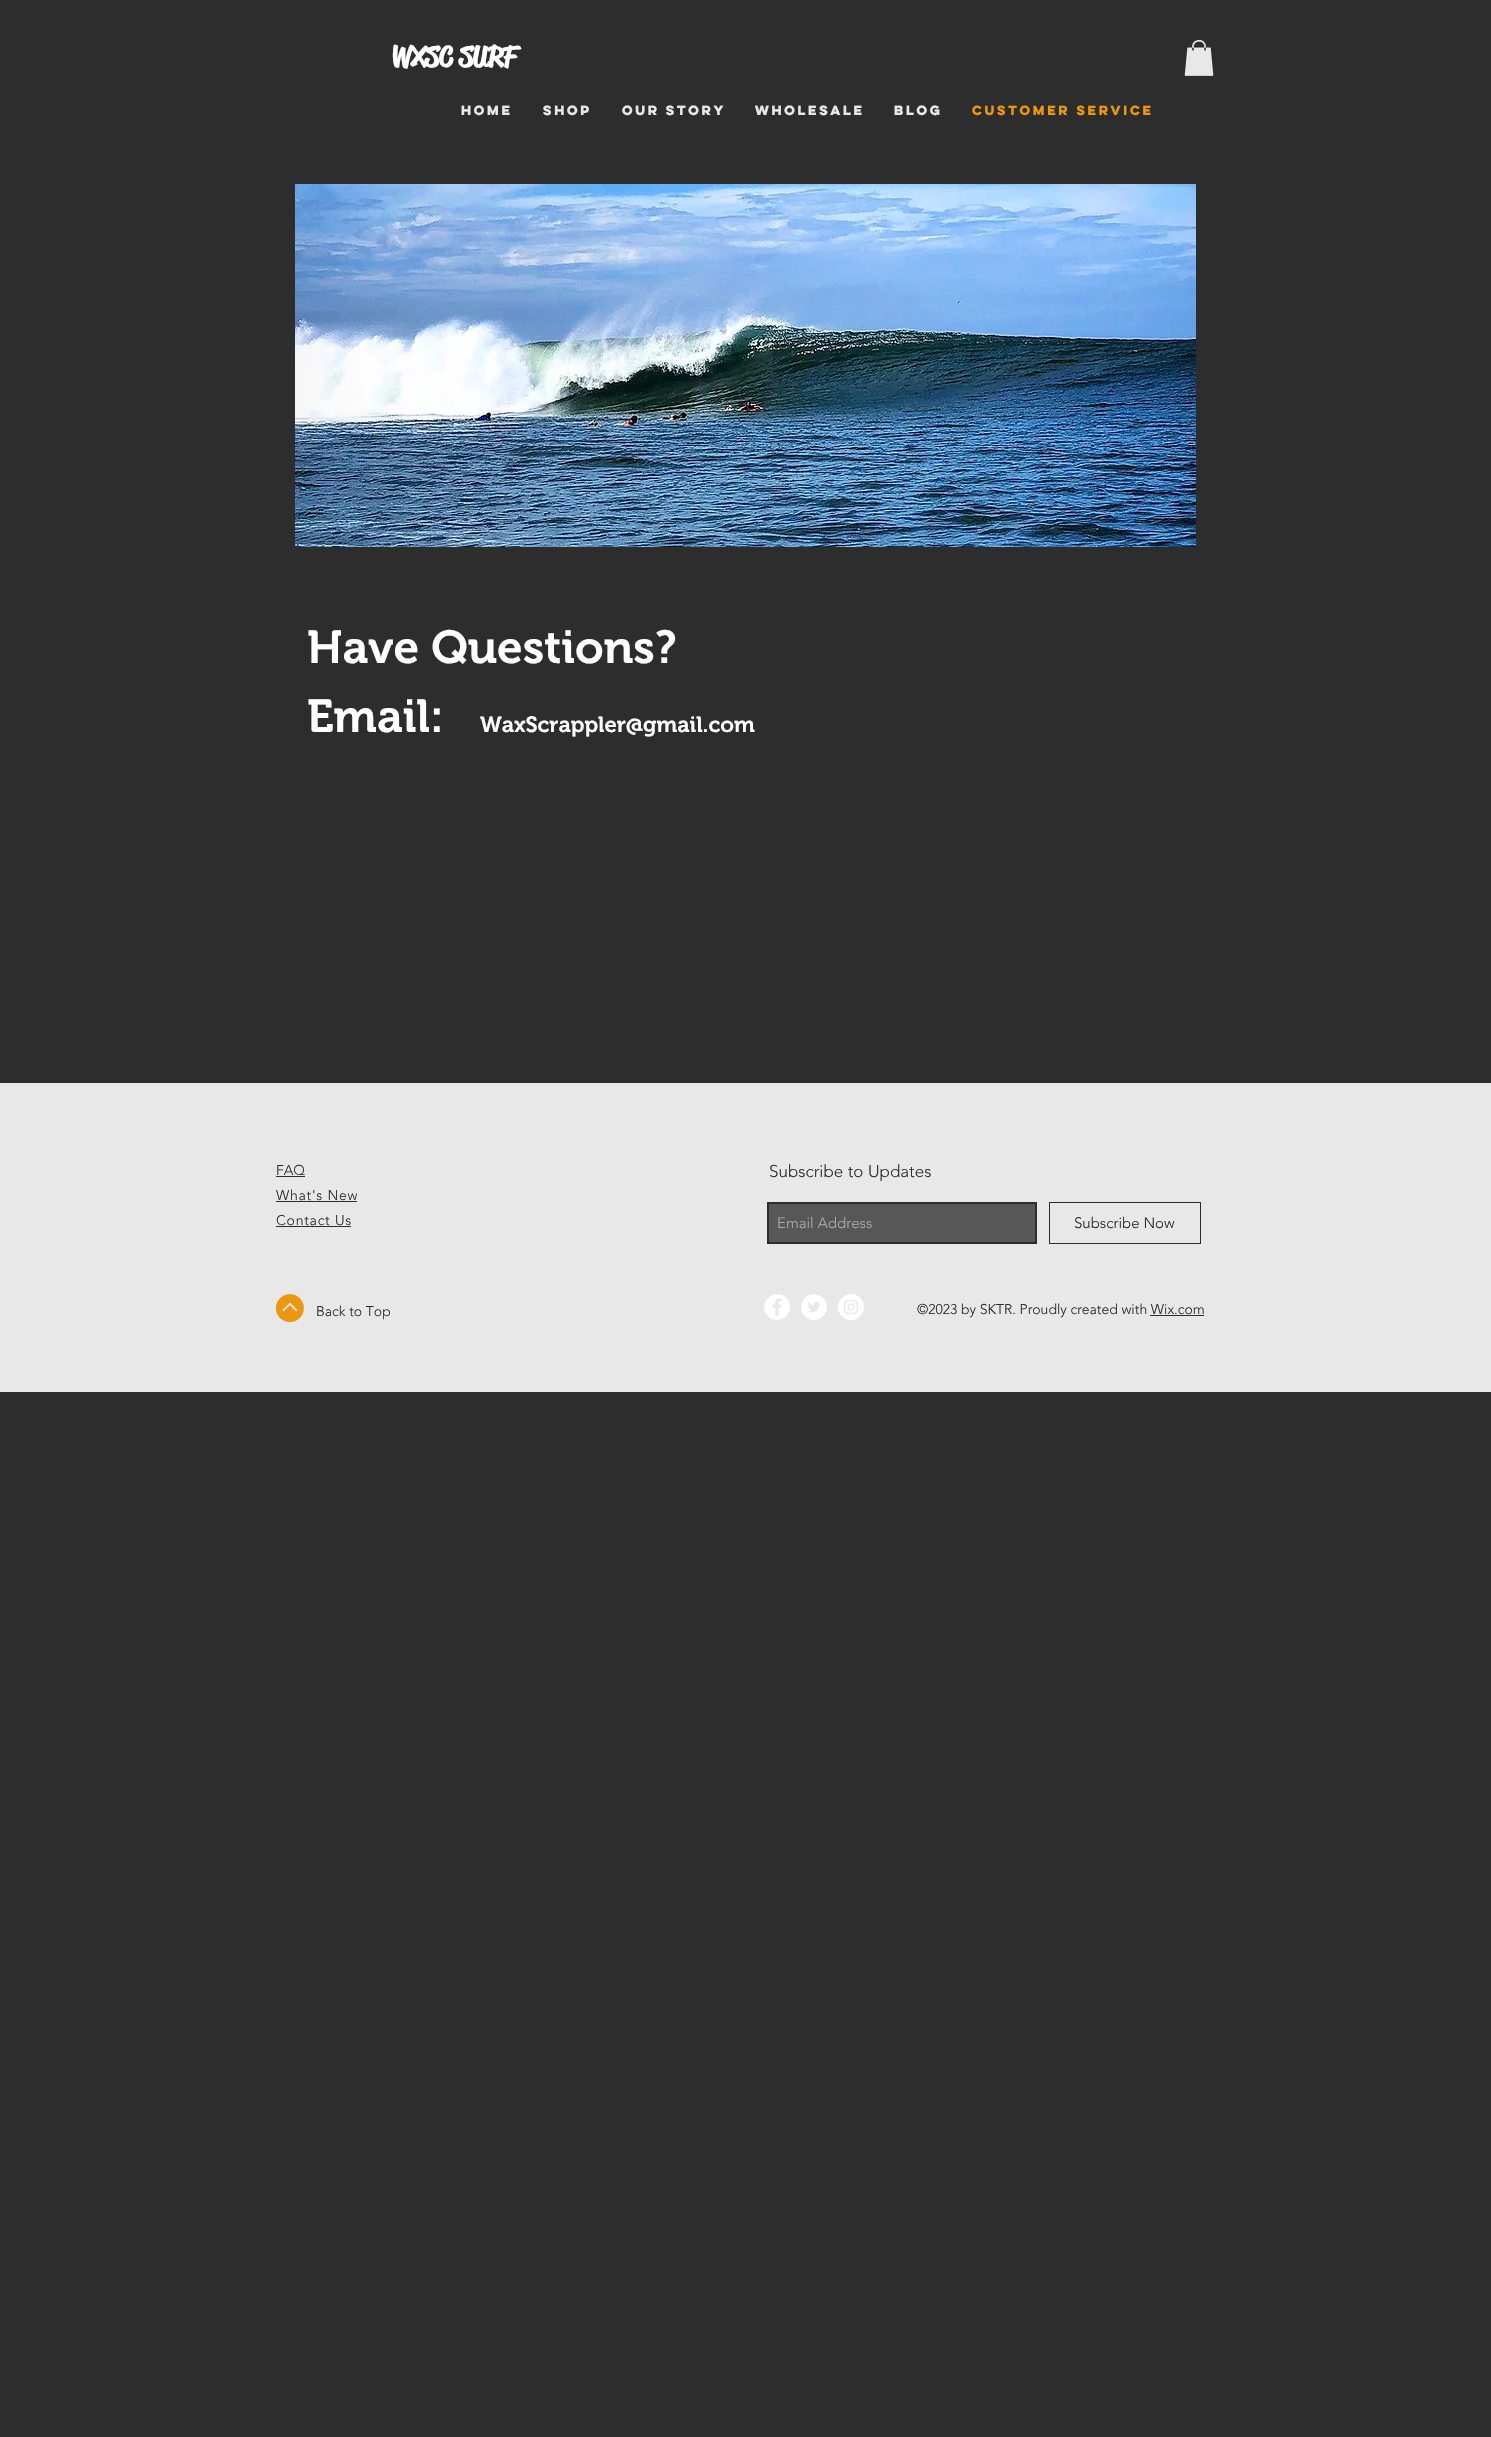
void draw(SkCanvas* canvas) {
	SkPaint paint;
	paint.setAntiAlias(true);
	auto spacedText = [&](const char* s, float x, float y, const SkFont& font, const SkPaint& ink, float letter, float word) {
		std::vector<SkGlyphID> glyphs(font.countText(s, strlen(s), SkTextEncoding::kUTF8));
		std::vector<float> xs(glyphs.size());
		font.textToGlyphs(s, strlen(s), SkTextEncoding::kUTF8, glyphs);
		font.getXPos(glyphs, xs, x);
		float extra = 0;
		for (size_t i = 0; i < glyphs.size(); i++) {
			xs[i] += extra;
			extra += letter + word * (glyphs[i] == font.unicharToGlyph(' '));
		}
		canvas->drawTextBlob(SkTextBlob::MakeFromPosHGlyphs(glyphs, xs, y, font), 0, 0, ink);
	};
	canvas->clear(0xff2d2d2d);
	SkFont f1(fontMgr->matchFamilyStyle("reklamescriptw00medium", SkFontStyle::Bold()), 28);
	f1.setSubpixel(true);
	paint.setColor(0xffffffff);
	canvas->drawString("WXSC SURF", 391, 66, f1, paint);
	canvas->drawImageRect(SkImages::DeferredFromEncodedData(SkData::MakeFromFileName("img1.png")), SkRect::MakeXYWH(1184, 40, 30, 36), SkSamplingOptions());
	SkFont f2(fontMgr->matchFamilyStyle("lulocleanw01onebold", SkFontStyle::Bold()), 12);
	f2.setSubpixel(true);
	paint.setColor(0xffe8e8e8);
	canvas->drawString("Home", 461, 115, f2, paint);
	canvas->drawString("Shop", 543, 115, f2, paint);
	canvas->drawString("Our Story", 622, 115, f2, paint);
	canvas->drawString("Wholesale", 755, 115, f2, paint);
	canvas->drawString("Blog", 894, 115, f2, paint);
	paint.setColor(0xffec9712);
	canvas->drawString("Customer Service", 972, 115, f2, paint);
	canvas->drawImageRect(SkImages::DeferredFromEncodedData(SkData::MakeFromFileName("img2.png")), SkRect::MakeXYWH(295, 184, 901, 363), SkSamplingOptions());
	SkFont f3(fontMgr->matchFamilyStyle("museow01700", SkFontStyle(600, SkFontStyle::kNormal_Width, SkFontStyle::kUpright_Slant)), 46);
	f3.setSubpixel(true);
	paint.setColor(0xffffffff);
	canvas->drawString("Have Questions?", 307, 663, f3, paint);
	canvas->drawString("Email:", 307, 732, f3, paint);
	SkFont f4(fontMgr->matchFamilyStyle("museow01700", SkFontStyle(600, SkFontStyle::kNormal_Width, SkFontStyle::kUpright_Slant)), 22);
	f4.setSubpixel(true);
	canvas->drawString("WaxScrappler@gmail.com", 480, 732, f4, paint);
	paint.setColor(0xffe8e8e8);
	canvas->drawRect(SkRect::MakeXYWH(0, 1083, 1491, 309), paint);
	SkFont f5(fontMgr->matchFamilyStyle("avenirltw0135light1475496", SkFontStyle(300, SkFontStyle::kNormal_Width, SkFontStyle::kUpright_Slant)), 14);
	f5.setSubpixel(true);
	paint.setColor(0xff2d2d2d);
	canvas->drawString("FAQ", 276, 1175, f5, paint);
	canvas->drawRect(SkRect::MakeXYWH(276, 1176, 29, 1), paint);
	spacedText("What's New", 276, 1200, f5, paint, 0.75, 0);
	canvas->drawRect(SkRect::MakeXYWH(276, 1201, 81, 1), paint);
	spacedText("Contact Us", 276, 1225, f5, paint, 0.75, 0);
	canvas->drawRect(SkRect::MakeXYWH(276, 1226, 75, 1), paint);
	SkFont f6(fontMgr->matchFamilyStyle("avenirltw0135light1475496", SkFontStyle(300, SkFontStyle::kNormal_Width, SkFontStyle::kUpright_Slant)), 17);
	f6.setSubpixel(true);
	canvas->drawString("Subscribe to Updates", 769, 1177, f6, paint);
	paint.setColor(0xff575757);
	canvas->drawRect(SkRect::MakeXYWH(768, 1203, 268, 40), paint);
	paint.setStroke(true);
	paint.setStrokeWidth(2);
	paint.setColor(0xff2d2d2d);
	canvas->drawRect(SkRect::MakeXYWH(768, 1203, 268, 40), paint);
	SkFont f7(fontMgr->matchFamilyStyle("avenirltw0135light1475496", SkFontStyle(300, SkFontStyle::kNormal_Width, SkFontStyle::kUpright_Slant)), 15);
	f7.setSubpixel(true);
	paint.setStroke(false);
	paint.setColor(0xffababab);
	canvas->drawString("Email Address", 777, 1228, f7, paint);
	paint.setStroke(true);
	paint.setStrokeWidth(1);
	paint.setColor(0xff2d2d2d);
	canvas->drawRect(SkRect::MakeXYWH(1049.5, 1202.5, 151, 41), paint);
	paint.setStroke(false);
	canvas->drawString("Subscribe Now", 1074, 1228, f7, paint);
	canvas->drawImageRect(SkImages::DeferredFromEncodedData(SkData::MakeFromFileName("img3.png")), SkRect::MakeXYWH(275, 1294, 29, 29), SkSamplingOptions());
	canvas->drawString("Back to Top", 316, 1316, f5, paint);
	canvas->drawImageRect(SkImages::DeferredFromEncodedData(SkData::MakeFromFileName("img4.png")), SkRect::MakeXYWH(764, 1294, 26, 26), SkSamplingOptions());
	canvas->drawImageRect(SkImages::DeferredFromEncodedData(SkData::MakeFromFileName("img5.png")), SkRect::MakeXYWH(801, 1294, 26, 26), SkSamplingOptions());
	canvas->drawImageRect(SkImages::DeferredFromEncodedData(SkData::MakeFromFileName("img6.png")), SkRect::MakeXYWH(838, 1294, 26, 26), SkSamplingOptions());
	canvas->drawString("©2023 by SKTR. Proudly created with Wix.com", 917, 1314, f5, paint);
	canvas->drawRect(SkRect::MakeXYWH(1150, 1315, 54, 1), paint);
}
